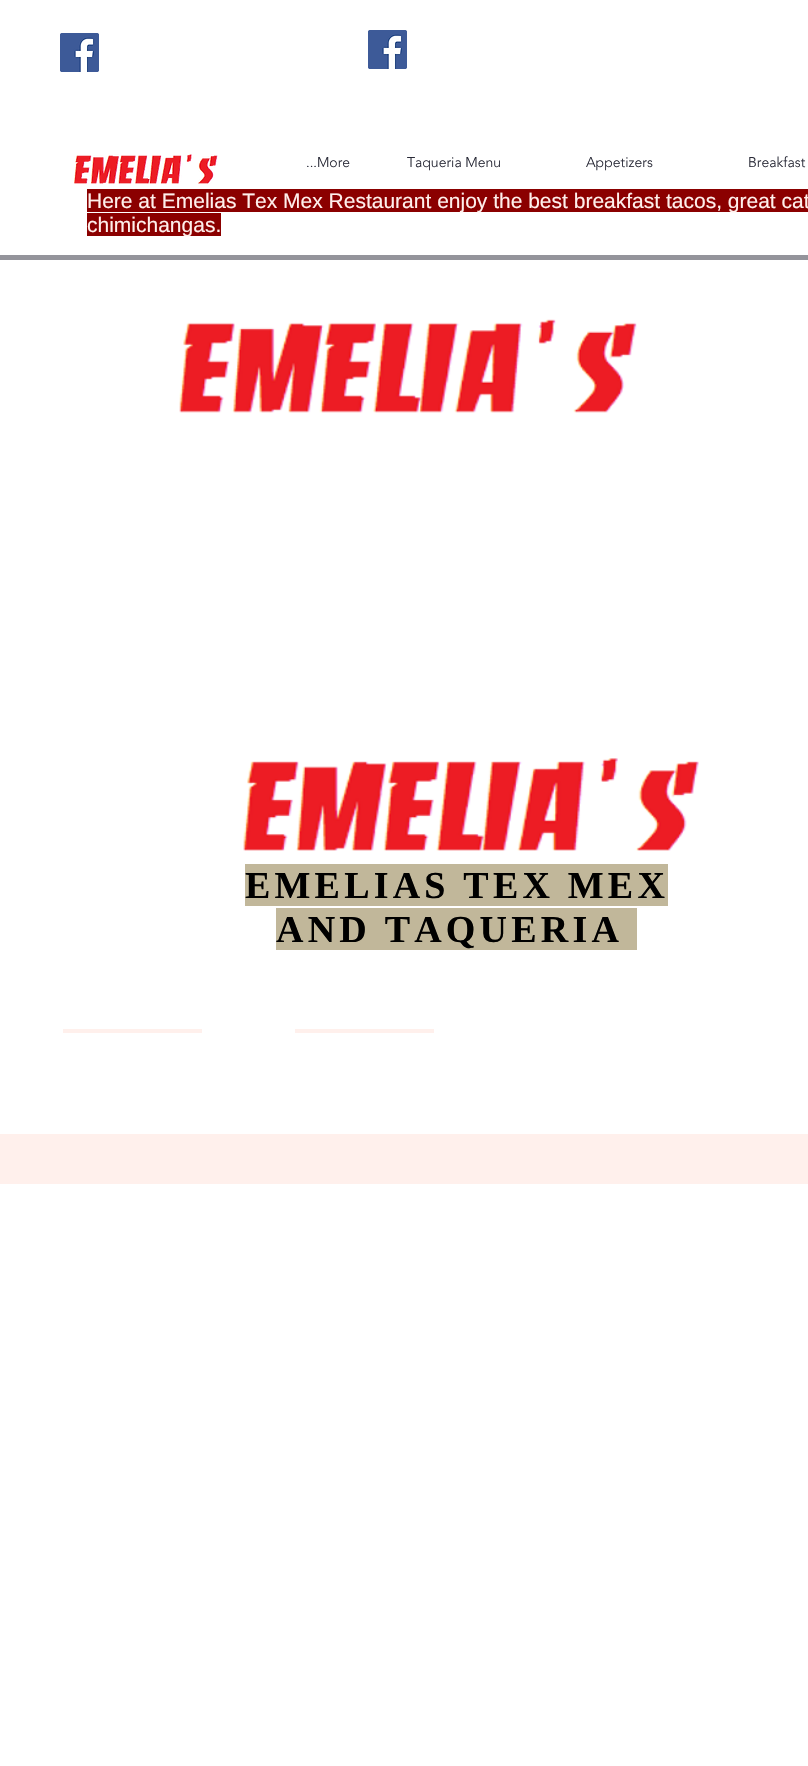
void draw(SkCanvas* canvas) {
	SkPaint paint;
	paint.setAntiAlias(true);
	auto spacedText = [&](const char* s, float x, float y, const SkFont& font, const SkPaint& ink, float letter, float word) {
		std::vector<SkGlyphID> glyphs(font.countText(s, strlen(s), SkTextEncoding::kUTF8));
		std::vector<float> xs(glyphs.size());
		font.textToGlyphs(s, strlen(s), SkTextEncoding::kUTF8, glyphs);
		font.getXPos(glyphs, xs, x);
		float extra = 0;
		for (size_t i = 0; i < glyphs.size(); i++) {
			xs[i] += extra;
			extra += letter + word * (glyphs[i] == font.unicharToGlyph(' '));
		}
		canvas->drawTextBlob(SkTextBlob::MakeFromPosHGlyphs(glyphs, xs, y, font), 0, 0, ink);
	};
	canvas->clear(0xffffffff);
	canvas->drawImageRect(SkImages::DeferredFromEncodedData(SkData::MakeFromFileName("img1.png")), SkRect::MakeXYWH(60, 33, 39, 39), SkSamplingOptions());
	canvas->drawImageRect(SkImages::DeferredFromEncodedData(SkData::MakeFromFileName("img1.png")), SkRect::MakeXYWH(368, 30, 39, 39), SkSamplingOptions());
	SkFont f1(fontMgr->matchFamilyStyle("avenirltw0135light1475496", SkFontStyle(300, SkFontStyle::kNormal_Width, SkFontStyle::kUpright_Slant)), 14);
	f1.setSubpixel(true);
	paint.setColor(0xff282936);
	canvas->drawString("...More", 306, 167, f1, paint);
	canvas->drawString("Taqueria Menu", 407, 167, f1, paint);
	canvas->drawString("Appetizers", 586, 167, f1, paint);
	canvas->drawString("Breakfast", 748, 167, f1, paint);
	canvas->drawImageRect(SkImages::DeferredFromEncodedData(SkData::MakeFromFileName("img2.png")), SkRect::MakeXYWH(74, 154, 144, 30), SkSamplingOptions());
	paint.setColor(0xff8b0000);
	canvas->drawRect(SkRect::MakeXYWH(87, 189, 721, 23), paint);
	SkFont f2(fontMgr->matchFamilyStyle("Liberation Sans", SkFontStyle::Normal()), 21);
	f2.setSubpixel(true);
	paint.setColor(0xfffff0ec);
	canvas->drawString("Here at Emelias Tex Mex Restaurant enjoy the best breakfast tacos, great cat", 87, 208, f2, paint);
	paint.setColor(0xff8b0000);
	canvas->drawRect(SkRect::MakeXYWH(87, 213, 134, 23), paint);
	paint.setColor(0xfffff0ec);
	canvas->drawString("chimichangas.", 87, 232, f2, paint);
	paint.setColor(0xff94949b);
	canvas->drawRect(SkRect::MakeXYWH(0, 255, 808, 5), paint);
	canvas->drawImageRect(SkImages::DeferredFromEncodedData(SkData::MakeFromFileName("img3.png")), SkRect::MakeXYWH(179, 319, 458, 94), SkSamplingOptions());
	canvas->drawImageRect(SkImages::DeferredFromEncodedData(SkData::MakeFromFileName("img4.png")), SkRect::MakeXYWH(243, 758, 456, 93), SkSamplingOptions());
	paint.setColor(0xffc1b79a);
	canvas->drawRect(SkRect::MakeXYWH(245, 864, 423, 42), paint);
	SkFont f3(fontMgr->matchFamilyStyle("Liberation Serif", SkFontStyle::Bold()), 38);
	f3.setSubpixel(true);
	paint.setColor(0xff000000);
	spacedText("EMELIAS TEX MEX", 245, 898, f3, paint, 4.2, 0);
	paint.setColor(0xffc1b79a);
	canvas->drawRect(SkRect::MakeXYWH(276, 908, 361, 42), paint);
	paint.setColor(0xff000000);
	spacedText("AND TAQUERIA", 276, 942, f3, paint, 4.2, 0);
	paint.setColor(0xfffff0ec);
	canvas->drawRect(SkRect::MakeXYWH(63, 1029, 139, 4), paint);
	canvas->drawRect(SkRect::MakeXYWH(295, 1029, 139, 4), paint);
	canvas->drawRect(SkRect::MakeXYWH(0, 1134, 808, 50), paint);
}
